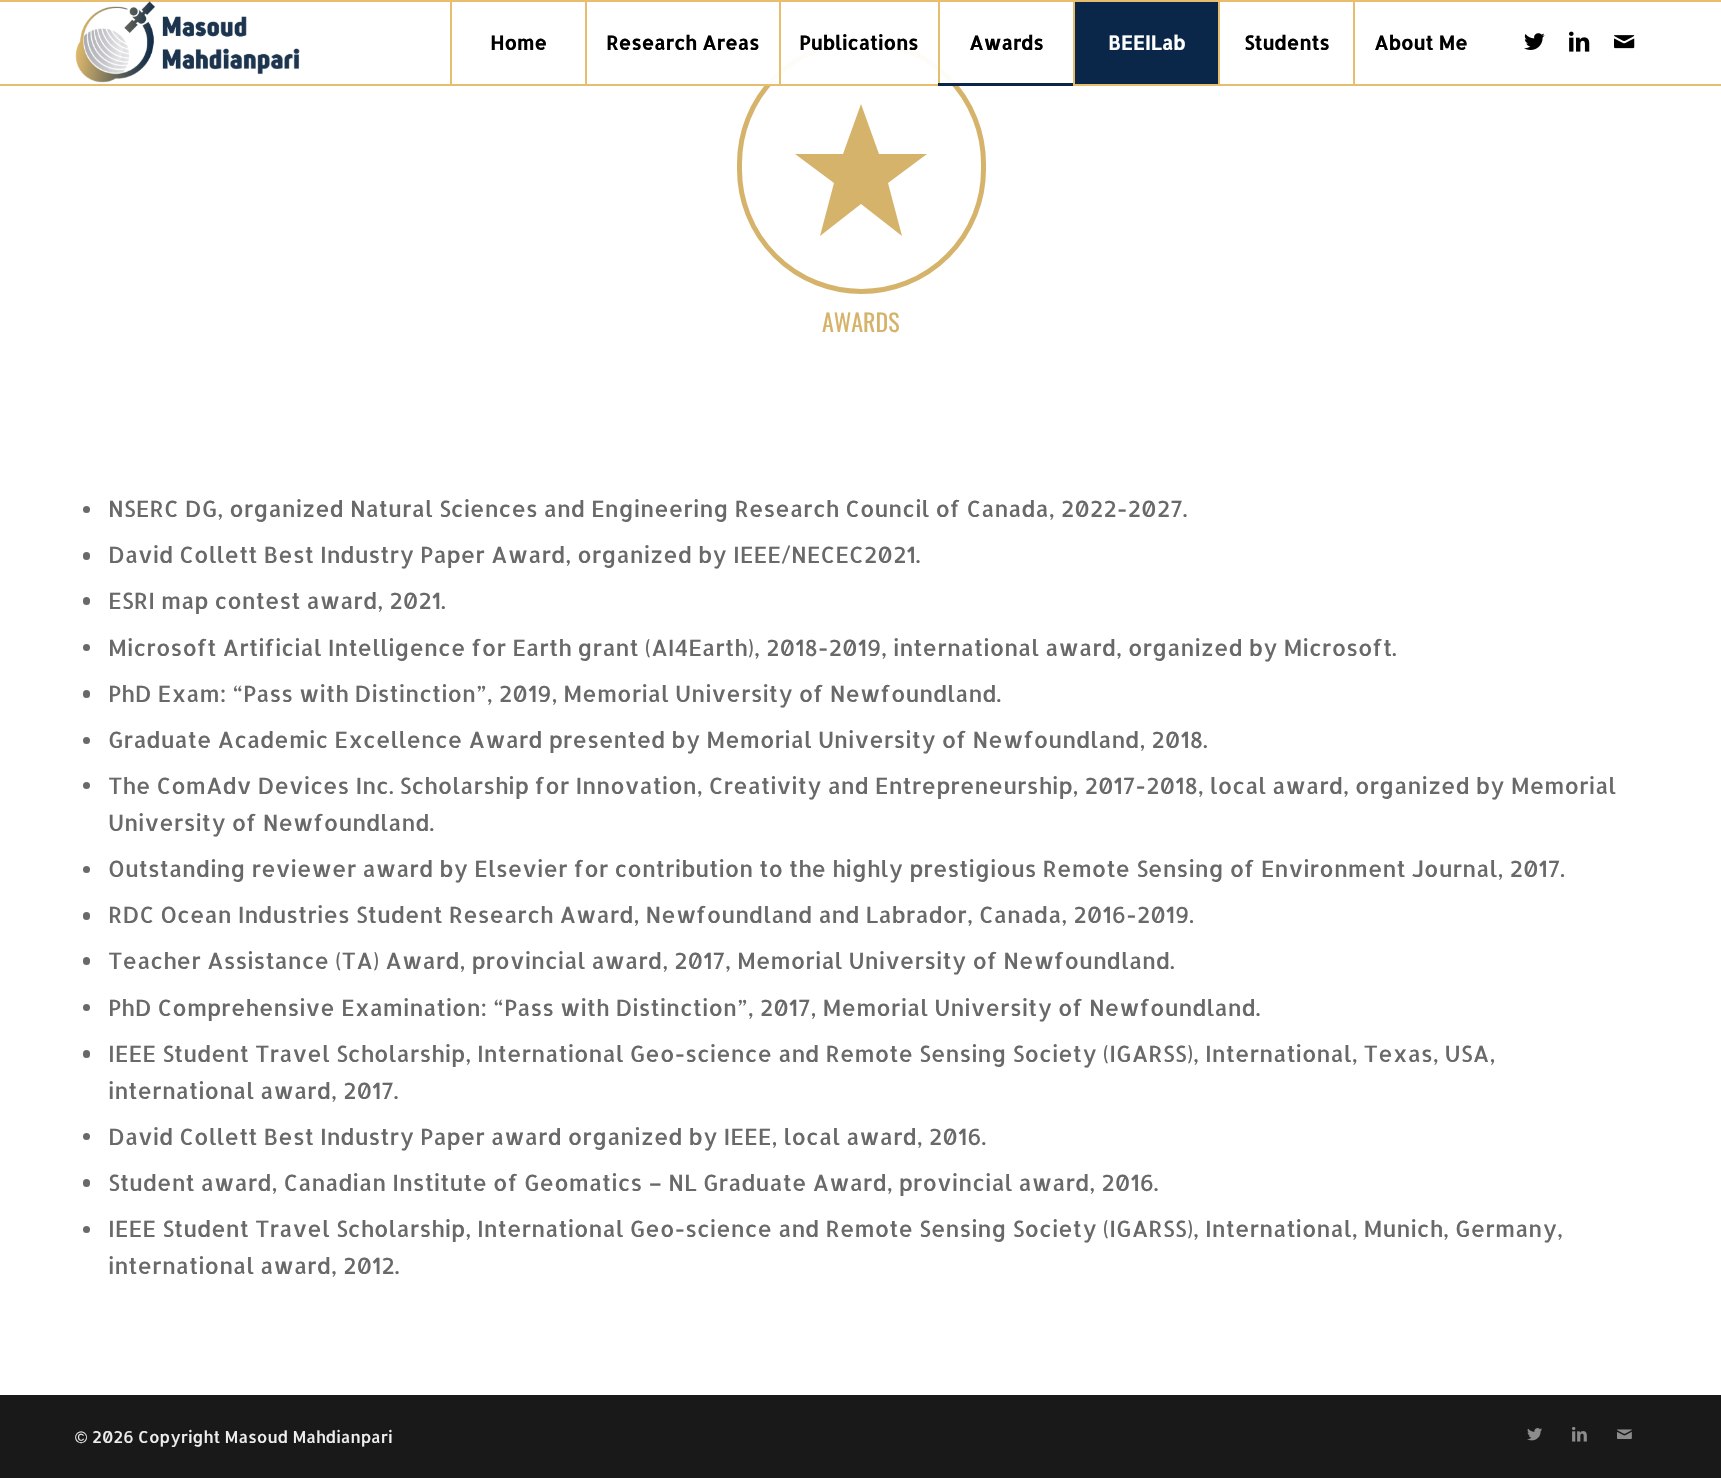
void draw(SkCanvas* canvas) {
	SkPaint paint;
	paint.setAntiAlias(true);
	auto svgPath = [&](const char* data, bool evenOdd = false) {
		SkPath result = *SkParsePath::FromSVGString(data);
		if (evenOdd) result.setFillType(SkPathFillType::kEvenOdd);
		return result;
	};
	canvas->clear(0xffffffff);
	paint.setColor(0xffe6be6e);
	canvas->drawRect(SkRect::MakeXYWH(0, 0, 1721, 2), paint);
	paint.setStroke(true);
	paint.setStrokeWidth(5);
	paint.setColor(0xffd6b36a);
	canvas->drawRoundRect(SkRect::MakeXYWH(739.5, 41.5, 244, 250), 122, 122, paint);
	paint.setStroke(false);
	paint.setColor(0xffe6be6e);
	canvas->drawRect(SkRect::MakeXYWH(0, 84, 1721, 2), paint);
	canvas->drawImageRect(SkImages::DeferredFromEncodedData(SkData::MakeFromFileName("img1.png")), SkRect::MakeXYWH(75, 1, 225, 82), SkSamplingOptions());
	canvas->drawRect(SkRect::MakeXYWH(450, 2, 2, 82), paint);
	SkFont f1(fontMgr->matchFamilyStyle("Allerta", SkFontStyle::Bold()), 19.5);
	f1.setSubpixel(true);
	paint.setColor(0xff000000);
	canvas->drawString("Home", 490, 50, f1, paint);
	paint.setColor(0xffe6be6e);
	canvas->drawRect(SkRect::MakeXYWH(585, 2, 2, 82), paint);
	paint.setColor(0xff000000);
	canvas->drawString("Research Areas", 606, 50, f1, paint);
	paint.setColor(0xf2ffffff);
	canvas->drawRect(SkRect::MakeXYWH(765, 39, 193, 45), paint);
	paint.setColor(0xffe6be6e);
	canvas->drawRect(SkRect::MakeXYWH(779, 2, 2, 82), paint);
	paint.setColor(0xff000000);
	canvas->drawString("Publications", 799, 50, f1, paint);
	paint.setColor(0xffe6be6e);
	canvas->drawRect(SkRect::MakeXYWH(938, 2, 2, 82), paint);
	paint.setColor(0xff000000);
	canvas->drawString("Awards", 969, 50, f1, paint);
	paint.setColor(0xff0a2749);
	canvas->drawRect(SkRect::MakeXYWH(938, 83, 135, 3), paint);
	canvas->drawRect(SkRect::MakeXYWH(1075, 2, 143, 82), paint);
	paint.setColor(0xffe6be6e);
	canvas->drawRect(SkRect::MakeXYWH(1073, 2, 2, 82), paint);
	paint.setColor(0xffffffff);
	canvas->drawString("BEEILab", 1108, 50, f1, paint);
	paint.setColor(0xffe6be6e);
	canvas->drawRect(SkRect::MakeXYWH(1218, 2, 2, 82), paint);
	paint.setColor(0xff000000);
	canvas->drawString("Students", 1244, 50, f1, paint);
	paint.setColor(0xffe6be6e);
	canvas->drawRect(SkRect::MakeXYWH(1353, 2, 2, 82), paint);
	paint.setColor(0xff000000);
	canvas->drawString("About Me", 1374, 50, f1, paint);
	canvas->drawImageRect(SkImages::DeferredFromEncodedData(SkData::MakeFromFileName("img2.png")), SkRect::MakeXYWH(1524, 33, 21, 17), SkSamplingOptions());
	canvas->drawImageRect(SkImages::DeferredFromEncodedData(SkData::MakeFromFileName("img3.png")), SkRect::MakeXYWH(1569, 31, 21, 21), SkSamplingOptions());
	canvas->drawImageRect(SkImages::DeferredFromEncodedData(SkData::MakeFromFileName("img4.png")), SkRect::MakeXYWH(1614, 35, 21, 14), SkSamplingOptions());
	paint.setColor(0xffd6b36a);
	canvas->drawPath(svgPath("M861 104L879 154H927L888 183L902 236L861 204L820 236L834 183L795 154H843Z"), paint);
	SkFont f2(fontMgr->matchFamilyStyle("Oswald", SkFontStyle::Normal()), 24);
	f2.setSubpixel(true);
	canvas->drawString("AWARDS", 822, 332, f2, paint);
	paint.setColor(0xff696969);
	canvas->drawCircle(86.5, 509.5, 3.5, paint);
	SkFont f3(fontMgr->matchFamilyStyle("Allerta", SkFontStyle::Normal()), 22.5);
	f3.setSubpixel(true);
	canvas->drawString("NSERC DG, organized Natural Sciences and Engineering Research Council of Canada, 2022-2027.", 108, 517, f3, paint);
	canvas->drawRoundRect(SkRect::MakeXYWH(83, 552, 7, 8), 3.5, 3.5, paint);
	canvas->drawString("David Collett Best Industry Paper Award, organized by IEEE/NECEC2021.", 108, 563, f3, paint);
	canvas->drawRoundRect(SkRect::MakeXYWH(83, 597, 7, 8), 3.5, 3.5, paint);
	canvas->drawString("ESRI map contest award, 2021.", 108, 609, f3, paint);
	canvas->drawCircle(86.5, 647.5, 3.5, paint);
	canvas->drawString("Microsoft Artificial Intelligence for Earth grant (AI4Earth), 2018-2019, international award, organized by Microsoft.", 108, 656, f3, paint);
	canvas->drawRoundRect(SkRect::MakeXYWH(83, 690, 7, 8), 3.5, 3.5, paint);
	canvas->drawString("PhD Exam: “Pass with Distinction”, 2019, Memorial University of Newfoundland.", 108, 702, f3, paint);
	canvas->drawCircle(86.5, 740.5, 3.5, paint);
	canvas->drawString("Graduate Academic Excellence Award presented by Memorial University of Newfoundland, 2018.", 108, 748, f3, paint);
	canvas->drawCircle(86.5, 785.5, 3.5, paint);
	canvas->drawString("The ComAdv Devices Inc. Scholarship for Innovation, Creativity and Entrepreneurship, 2017-2018, local award, organized by Memorial", 108, 794, f3, paint);
	canvas->drawString("University of Newfoundland.", 108, 831, f3, paint);
	canvas->drawCircle(86.5, 869.5, 3.5, paint);
	canvas->drawString("Outstanding reviewer award by Elsevier for contribution to the highly prestigious Remote Sensing of Environment Journal, 2017.", 108, 877, f3, paint);
	canvas->drawRoundRect(SkRect::MakeXYWH(83, 912, 7, 8), 3.5, 3.5, paint);
	canvas->drawString("RDC Ocean Industries Student Research Award, Newfoundland and Labrador, Canada, 2016-2019.", 108, 923, f3, paint);
	canvas->drawRoundRect(SkRect::MakeXYWH(83, 957, 7, 8), 3.5, 3.5, paint);
	canvas->drawString("Teacher Assistance (TA) Award, provincial award, 2017, Memorial University of Newfoundland.", 108, 969, f3, paint);
	canvas->drawCircle(86.5, 1007.5, 3.5, paint);
	canvas->drawString("PhD Comprehensive Examination: “Pass with Distinction”, 2017, Memorial University of Newfoundland.", 108, 1016, f3, paint);
	canvas->drawRoundRect(SkRect::MakeXYWH(83, 1050, 7, 8), 3.5, 3.5, paint);
	canvas->drawString("IEEE Student Travel Scholarship, International Geo-science and Remote Sensing Society (IGARSS), International, Texas, USA,", 108, 1062, f3, paint);
	canvas->drawString("international award, 2017.", 108, 1099, f3, paint);
	canvas->drawCircle(86.5, 1136.5, 3.5, paint);
	canvas->drawString("David Collett Best Industry Paper award organized by IEEE, local award, 2016.", 108, 1145, f3, paint);
	canvas->drawRoundRect(SkRect::MakeXYWH(83, 1179, 7, 8), 3.5, 3.5, paint);
	canvas->drawString("Student award, Canadian Institute of Geomatics – NL Graduate Award, provincial award, 2016.", 108, 1191, f3, paint);
	canvas->drawCircle(86.5, 1229.5, 3.5, paint);
	canvas->drawString("IEEE Student Travel Scholarship, International Geo-science and Remote Sensing Society (IGARSS), International, Munich, Germany,", 108, 1237, f3, paint);
	canvas->drawString("international award, 2012.", 108, 1274, f3, paint);
	paint.setColor(0xff191919);
	canvas->drawRect(SkRect::MakeXYWH(0, 1395, 1721, 83), paint);
	SkFont f4(fontMgr->matchFamilyStyle("Liberation Sans", SkFontStyle::Normal()), 16.5);
	f4.setSubpixel(true);
	paint.setColor(0xffeeeeee);
	canvas->drawString("©", 75, 1443, f4, paint);
	SkFont f5(fontMgr->matchFamilyStyle("Allerta", SkFontStyle::Normal()), 16.5);
	f5.setSubpixel(true);
	canvas->drawString("2026 Copyright Masoud Mahdianpari", 92, 1443, f5, paint);
	canvas->drawImageRect(SkImages::DeferredFromEncodedData(SkData::MakeFromFileName("img5.png")), SkRect::MakeXYWH(1527, 1428, 15, 13), SkSamplingOptions());
	canvas->drawImageRect(SkImages::DeferredFromEncodedData(SkData::MakeFromFileName("img6.png")), SkRect::MakeXYWH(1572, 1426, 15, 16), SkSamplingOptions());
	canvas->drawImageRect(SkImages::DeferredFromEncodedData(SkData::MakeFromFileName("img7.png")), SkRect::MakeXYWH(1617, 1429, 15, 10), SkSamplingOptions());
}
